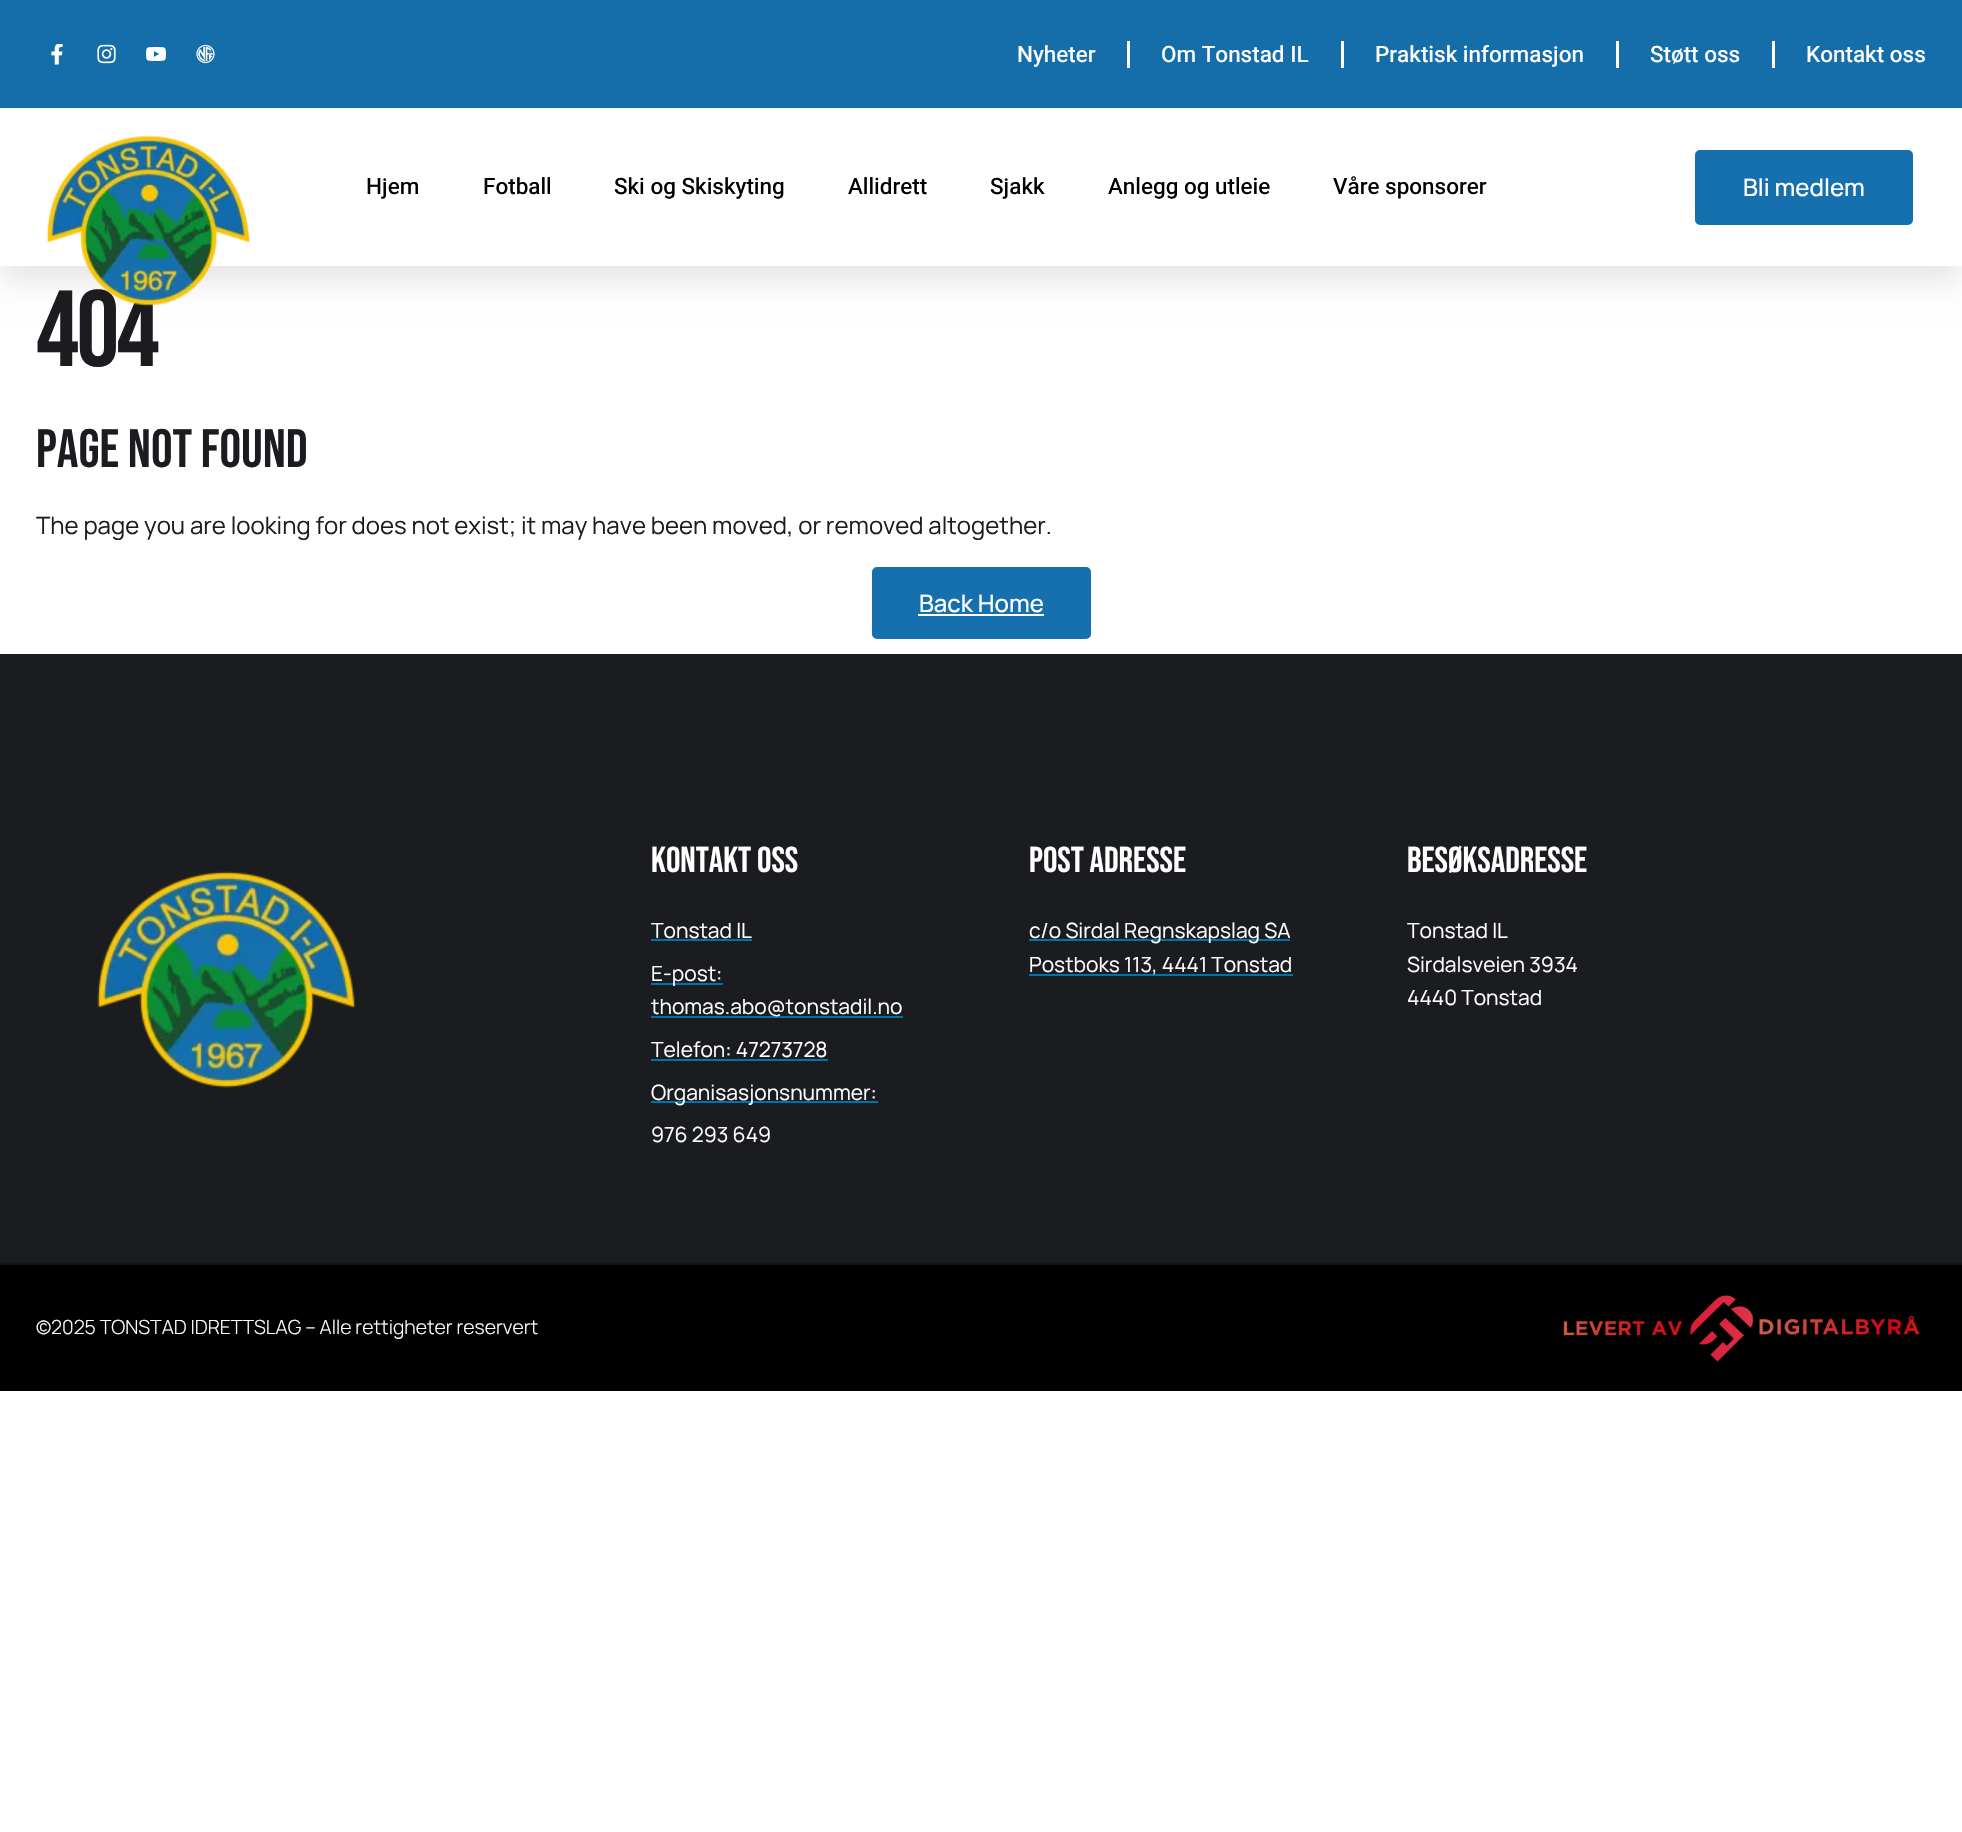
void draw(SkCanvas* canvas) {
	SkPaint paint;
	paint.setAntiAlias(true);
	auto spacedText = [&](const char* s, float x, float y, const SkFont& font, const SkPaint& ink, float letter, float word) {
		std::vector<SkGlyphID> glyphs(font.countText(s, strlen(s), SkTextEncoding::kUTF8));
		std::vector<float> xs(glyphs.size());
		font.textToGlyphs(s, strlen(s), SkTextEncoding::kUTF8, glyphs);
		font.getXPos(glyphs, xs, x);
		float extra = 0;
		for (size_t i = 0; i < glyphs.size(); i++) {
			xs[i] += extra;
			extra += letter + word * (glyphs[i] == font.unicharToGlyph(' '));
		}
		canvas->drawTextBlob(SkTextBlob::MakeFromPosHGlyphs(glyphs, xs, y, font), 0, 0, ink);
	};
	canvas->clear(0xffffffff);
	paint.setColor(0x1a000000);
	paint.setMaskFilter(SkMaskFilter::MakeBlur(kNormal_SkBlurStyle, 15));
	canvas->drawRect(SkRect::MakeXYWH(0, 123, 1962, 158), paint);
	paint.setMaskFilter(nullptr);
	paint.setColor(0xff156eaa);
	canvas->drawRect(SkRect::MakeXYWH(0, 0, 1962, 108), paint);
	canvas->drawImageRect(SkImages::DeferredFromEncodedData(SkData::MakeFromFileName("img1.png")), SkRect::MakeXYWH(51, 44, 12, 21), SkSamplingOptions());
	canvas->drawImageRect(SkImages::DeferredFromEncodedData(SkData::MakeFromFileName("img2.png")), SkRect::MakeXYWH(97, 44, 19, 20), SkSamplingOptions());
	canvas->drawImageRect(SkImages::DeferredFromEncodedData(SkData::MakeFromFileName("img3.png")), SkRect::MakeXYWH(146, 47, 20, 14), SkSamplingOptions());
	canvas->drawImageRect(SkImages::DeferredFromEncodedData(SkData::MakeFromFileName("img4.png")), SkRect::MakeXYWH(196, 44, 19, 20), SkSamplingOptions());
	SkFont f1(fontMgr->matchFamilyStyle("Heebo", SkFontStyle(500, SkFontStyle::kNormal_Width, SkFontStyle::kUpright_Slant)), 22.5);
	f1.setSubpixel(true);
	paint.setColor(0xffffffff);
	canvas->drawString("Nyheter", 1017, 62, f1, paint);
	canvas->drawRect(SkRect::MakeXYWH(1127, 41, 3, 27), paint);
	canvas->drawString("Om Tonstad IL", 1161, 62, f1, paint);
	canvas->drawRect(SkRect::MakeXYWH(1341, 41, 3, 27), paint);
	canvas->drawString("Praktisk informasjon", 1375, 62, f1, paint);
	canvas->drawRect(SkRect::MakeXYWH(1616, 41, 3, 27), paint);
	canvas->drawString("Støtt oss", 1650, 62, f1, paint);
	canvas->drawRect(SkRect::MakeXYWH(1772, 41, 3, 27), paint);
	canvas->drawString("Kontakt oss", 1806, 62, f1, paint);
	canvas->drawRect(SkRect::MakeXYWH(0, 108, 1962, 158), paint);
	SkFont f2(fontMgr->matchFamilyStyle("Bebas Neue", SkFontStyle::Normal()), 108);
	f2.setSubpixel(true);
	paint.setColor(0xff1a1c1f);
	spacedText("404", 36, 366, f2, paint, -3, 0);
	canvas->drawImageRect(SkImages::DeferredFromEncodedData(SkData::MakeFromFileName("img5.png")), SkRect::MakeXYWH(46, 135, 205, 171), SkSamplingOptions());
	paint.setColor(0xff000000);
	canvas->drawString("Hjem", 366, 194, f1, paint);
	canvas->drawString("Fotball", 483, 194, f1, paint);
	canvas->drawString("Ski og Skiskyting", 614, 194, f1, paint);
	canvas->drawString("Allidrett", 848, 194, f1, paint);
	canvas->drawString("Sjakk", 990, 194, f1, paint);
	canvas->drawString("Anlegg og utleie", 1108, 194, f1, paint);
	canvas->drawString("Våre sponsorer", 1333, 194, f1, paint);
	paint.setColor(0xff1770ae);
	canvas->drawRoundRect(SkRect::MakeXYWH(1696.5, 151.5, 215, 72), 3.5, 3.5, paint);
	paint.setStroke(true);
	paint.setStrokeWidth(3);
	canvas->drawRoundRect(SkRect::MakeXYWH(1696.5, 151.5, 215, 72), 3.5, 3.5, paint);
	SkFont f3(fontMgr->matchFamilyStyle("Manrope", SkFontStyle(500, SkFontStyle::kNormal_Width, SkFontStyle::kUpright_Slant)), 24);
	f3.setSubpixel(true);
	paint.setStroke(false);
	paint.setColor(0xffffffff);
	canvas->drawString("Bli medlem", 1743, 196, f3, paint);
	SkFont f4(fontMgr->matchFamilyStyle("Bebas Neue", SkFontStyle::Normal()), 54);
	f4.setSubpixel(true);
	paint.setColor(0xff1a1c1f);
	canvas->drawString("Page not found", 36, 467, f4, paint);
	SkFont f5(fontMgr->matchFamilyStyle("Manrope", SkFontStyle::Normal()), 24);
	f5.setSubpixel(true);
	canvas->drawString("The page you are looking for does not exist; it may have been moved, or removed altogether.", 36, 534, f5, paint);
	paint.setColor(0xff1770ae);
	canvas->drawRoundRect(SkRect::MakeXYWH(873, 568, 217, 70), 4, 4, paint);
	paint.setStroke(true);
	paint.setStrokeWidth(2);
	canvas->drawRoundRect(SkRect::MakeXYWH(873, 568, 217, 70), 4, 4, paint);
	paint.setStroke(false);
	paint.setColor(0xffffffff);
	canvas->drawString("Back Home", 919, 612, f3, paint);
	canvas->drawRect(SkRect::MakeXYWH(918, 614, 126, 2), paint);
	paint.setColor(0xff1a1c1f);
	canvas->drawRect(SkRect::MakeXYWH(0, 654, 1962, 609), paint);
	paint.setColor(0xff131517);
	canvas->drawRect(SkRect::MakeXYWH(0, 1263, 1962, 2), paint);
	canvas->drawImageRect(SkImages::DeferredFromEncodedData(SkData::MakeFromFileName("img6.png")), SkRect::MakeXYWH(97, 871, 259, 217), SkSamplingOptions());
	SkFont f6(fontMgr->matchFamilyStyle("Bebas Neue", SkFontStyle::Normal()), 36);
	f6.setSubpixel(true);
	paint.setColor(0xffffffff);
	canvas->drawString("Kontakt oss", 651, 872, f6, paint);
	SkFont f7(fontMgr->matchFamilyStyle("Manrope", SkFontStyle::Normal()), 21);
	f7.setSubpixel(true);
	canvas->drawString("Tonstad IL", 651, 938, f7, paint);
	paint.setColor(0xff0073aa);
	canvas->drawRect(SkRect::MakeXYWH(651, 939, 101, 2), paint);
	canvas->drawRect(SkRect::MakeXYWH(651, 983, 72, 2), paint);
	paint.setColor(0xffffffff);
	canvas->drawString("E-post:", 651, 981, f7, paint);
	paint.setColor(0xff0073aa);
	canvas->drawRect(SkRect::MakeXYWH(651, 1016, 252, 2), paint);
	paint.setColor(0xffffffff);
	canvas->drawString("thomas.abo@tonstadil.no", 651, 1014, f7, paint);
	canvas->drawString("Telefon: 47273728", 651, 1057, f7, paint);
	paint.setColor(0xff0073aa);
	canvas->drawRect(SkRect::MakeXYWH(651, 1059, 177, 2), paint);
	canvas->drawRect(SkRect::MakeXYWH(651, 1101, 227, 2), paint);
	paint.setColor(0xffffffff);
	canvas->drawString("Organisasjonsnummer:", 651, 1100, f7, paint);
	canvas->drawString("976 293 649", 651, 1142, f7, paint);
	canvas->drawString("Post adresse", 1029, 872, f6, paint);
	paint.setColor(0xff0073aa);
	canvas->drawRect(SkRect::MakeXYWH(1029, 939, 261, 2), paint);
	paint.setColor(0xffffffff);
	canvas->drawString("c/o Sirdal Regnskapslag SA", 1029, 938, f7, paint);
	paint.setColor(0xff0073aa);
	canvas->drawRect(SkRect::MakeXYWH(1029, 974, 264, 2), paint);
	paint.setColor(0xffffffff);
	canvas->drawString("Postboks 113, 4441 Tonstad", 1029, 972, f7, paint);
	canvas->drawString("Besøksadresse", 1407, 872, f6, paint);
	canvas->drawString("Tonstad IL", 1407, 938, f7, paint);
	canvas->drawString("Sirdalsveien 3934", 1407, 972, f7, paint);
	canvas->drawString("4440 Tonstad", 1407, 1005, f7, paint);
	paint.setColor(0xff000000);
	canvas->drawRect(SkRect::MakeXYWH(0, 1265, 1962, 126), paint);
	SkFont f8(fontMgr->matchFamilyStyle("Manrope", SkFontStyle(300, SkFontStyle::kNormal_Width, SkFontStyle::kUpright_Slant)), 19.5);
	f8.setSubpixel(true);
	paint.setColor(0xffffffff);
	canvas->drawString("©2025 TONSTAD IDRETTSLAG – Alle rettigheter reservert", 36, 1334, f8, paint);
	canvas->drawImageRect(SkImages::DeferredFromEncodedData(SkData::MakeFromFileName("img7.png")), SkRect::MakeXYWH(1563, 1295, 357, 67), SkSamplingOptions());
}
